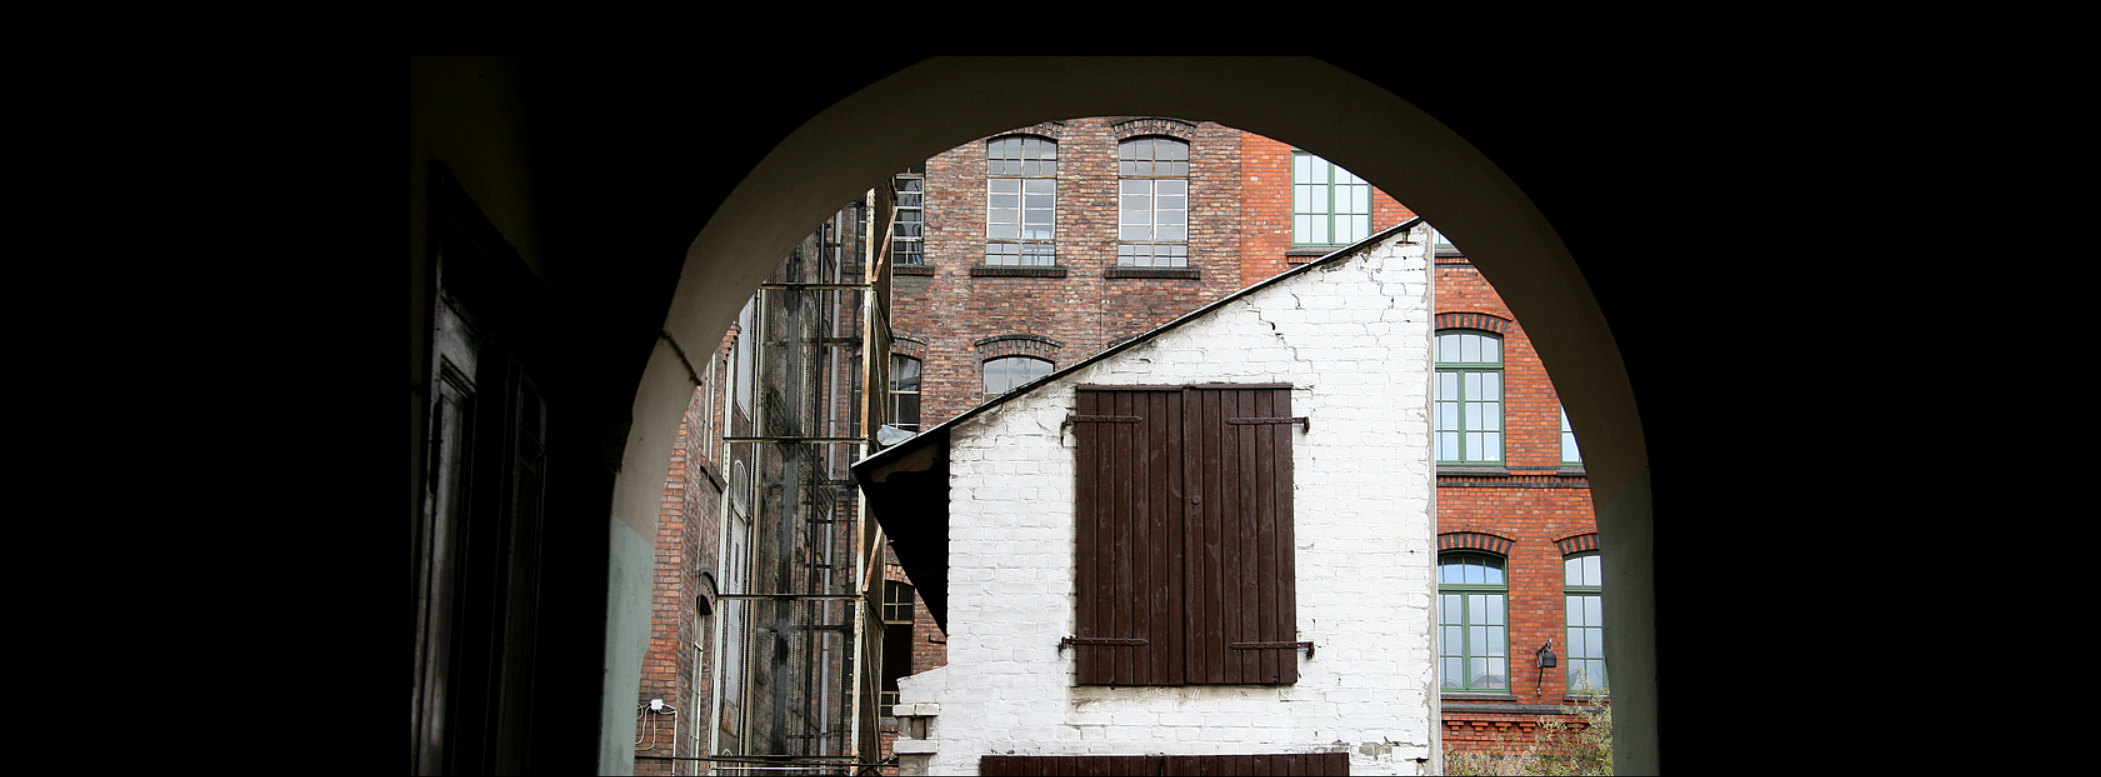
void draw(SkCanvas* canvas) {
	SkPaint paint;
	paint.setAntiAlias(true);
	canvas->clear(0xff000000);
	canvas->drawImageRect(SkImages::DeferredFromEncodedData(SkData::MakeFromFileName("img1.png")), SkRect::MakeXYWH(411, 56, 1251, 721), SkSamplingOptions());
}
